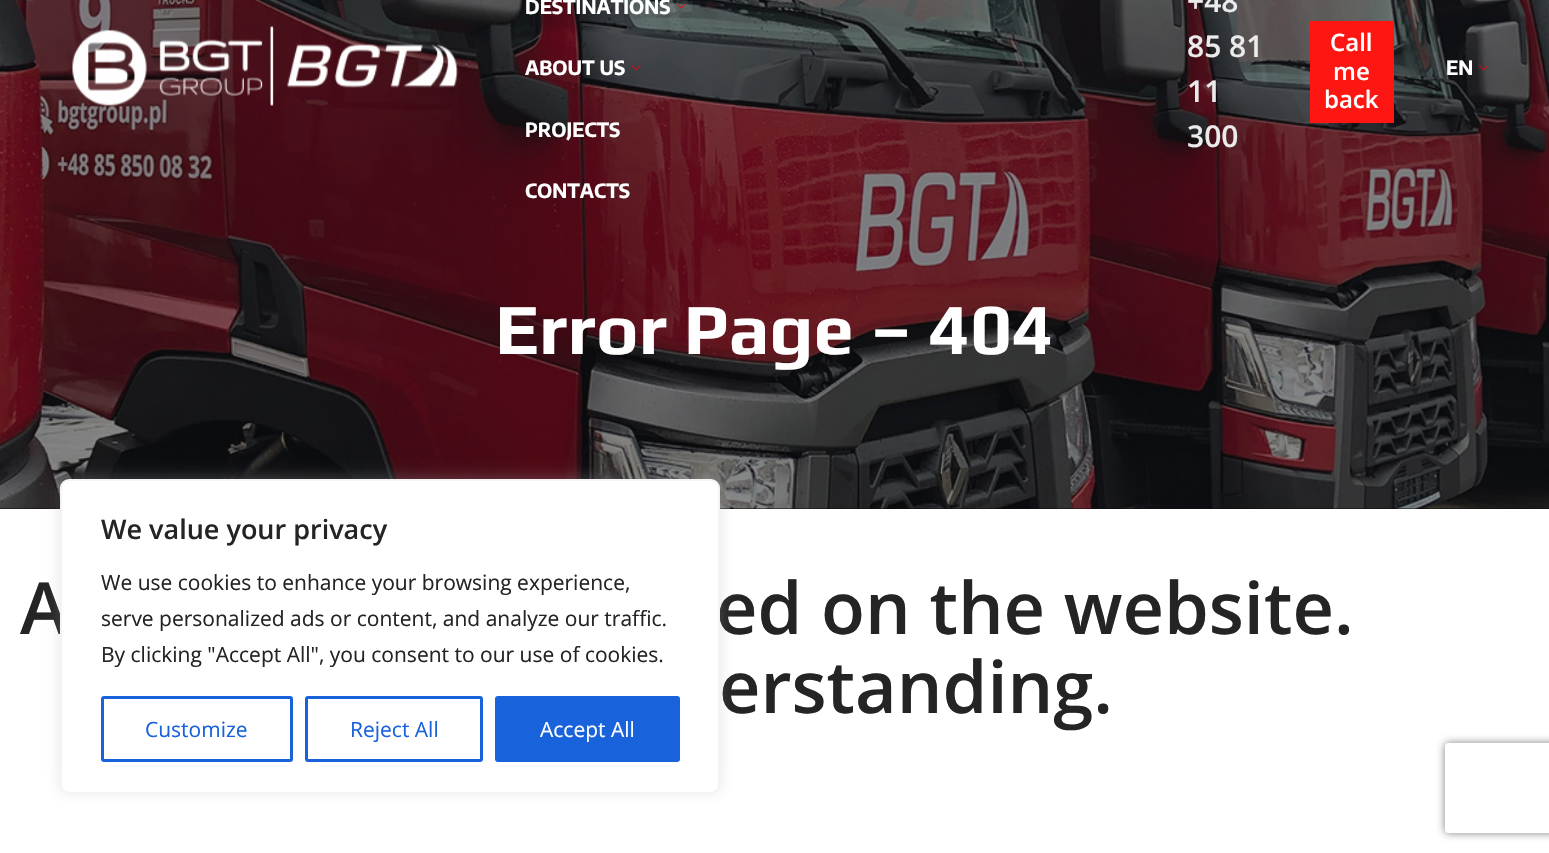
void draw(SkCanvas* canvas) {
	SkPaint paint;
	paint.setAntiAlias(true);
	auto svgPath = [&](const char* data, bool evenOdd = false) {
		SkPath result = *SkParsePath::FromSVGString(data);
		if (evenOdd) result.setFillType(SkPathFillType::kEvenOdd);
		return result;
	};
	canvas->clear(0xffffffff);
	paint.setColor(0xff0a0a0a);
	canvas->drawRect(SkRect::MakeXYWH(0, 508, 1549, 1), paint);
	canvas->drawImageRect(SkImages::DeferredFromEncodedData(SkData::MakeFromFileName("img5.png")), SkRect::MakeXYWH(0, 0, 1549, 509), SkSamplingOptions());
	canvas->drawImageRect(SkImages::DeferredFromEncodedData(SkData::MakeFromFileName("img1.png")), SkRect::MakeXYWH(72, 26, 386, 80), SkSamplingOptions());
	SkFont f1(fontMgr->matchFamilyStyle("Encode Sans Condensed", SkFontStyle::Bold()), 19.5);
	f1.setSubpixel(true);
	paint.setColor(0xffffffff);
	canvas->drawString("DESTINATIONS", 525, 14, f1, paint);
	canvas->drawImageRect(SkImages::DeferredFromEncodedData(SkData::MakeFromFileName("img2.png")), SkRect::MakeXYWH(676, 3, 10, 6), SkSamplingOptions());
	canvas->drawString("ABOUT US", 525, 75, f1, paint);
	canvas->drawImageRect(SkImages::DeferredFromEncodedData(SkData::MakeFromFileName("img3.png")), SkRect::MakeXYWH(631, 65, 10, 6), SkSamplingOptions());
	canvas->drawString("PROJECTS", 525, 137, f1, paint);
	canvas->drawString("CONTACTS", 525, 198, f1, paint);
	SkFont f2(fontMgr->matchFamilyStyle("Open Sans", SkFontStyle(600, SkFontStyle::kNormal_Width, SkFontStyle::kUpright_Slant)), 30);
	f2.setSubpixel(true);
	paint.setColor(0xffebebeb);
	canvas->drawString("+48", 1187, 12, f2, paint);
	canvas->drawString("85 81", 1187, 57, f2, paint);
	canvas->drawString("11", 1187, 102, f2, paint);
	canvas->drawString("300", 1187, 147, f2, paint);
	paint.setColor(0xfffe1712);
	canvas->drawRect(SkRect::MakeXYWH(1310, 21, 84, 102), paint);
	SkFont f3(fontMgr->matchFamilyStyle("Open Sans", SkFontStyle(600, SkFontStyle::kNormal_Width, SkFontStyle::kUpright_Slant)), 24);
	f3.setSubpixel(true);
	paint.setColor(0xffffffff);
	canvas->drawString("Call", 1330, 51, f3, paint);
	canvas->drawString("me", 1333, 80, f3, paint);
	canvas->drawString("back", 1324, 108, f3, paint);
	canvas->drawString("EN", 1446, 75, f1, paint);
	canvas->drawImageRect(SkImages::DeferredFromEncodedData(SkData::MakeFromFileName("img4.png")), SkRect::MakeXYWH(1479, 65, 9, 6), SkSamplingOptions());
	SkFont f4(fontMgr->matchFamilyStyle("Play", SkFontStyle::Bold()), 72);
	f4.setSubpixel(true);
	canvas->drawString("Error Page – 404", 495, 354, f4, paint);
	SkFont f5(fontMgr->matchFamilyStyle("Open Sans", SkFontStyle(600, SkFontStyle::kNormal_Width, SkFontStyle::kUpright_Slant)), 72);
	f5.setSubpixel(true);
	paint.setColor(0xff242424);
	canvas->drawString("A", 20, 634, f5, paint);
	canvas->drawString("ed on the website.", 716, 634, f5, paint);
	canvas->drawString("erstanding.", 719, 713, f5, paint);
	paint.setColor(0x4dacabab);
	paint.setMaskFilter(SkMaskFilter::MakeBlur(kNormal_SkBlurStyle, 7.5));
	canvas->drawRoundRect(SkRect::MakeXYWH(60, 477, 660, 315), 9, 9, paint);
	paint.setMaskFilter(nullptr);
	paint.setColor(0xffffffff);
	canvas->drawRoundRect(SkRect::MakeXYWH(61, 480, 658, 313), 8, 8, paint);
	paint.setStroke(true);
	paint.setStrokeWidth(2);
	paint.setColor(0xfff4f4f4);
	canvas->drawRoundRect(SkRect::MakeXYWH(61, 480, 658, 313), 8, 8, paint);
	SkFont f6(fontMgr->matchFamilyStyle("Open Sans", SkFontStyle(600, SkFontStyle::kNormal_Width, SkFontStyle::kUpright_Slant)), 27);
	f6.setSubpixel(true);
	paint.setStroke(false);
	paint.setColor(0xff242424);
	canvas->drawString("We value your privacy", 101, 539, f6, paint);
	SkFont f7(fontMgr->matchFamilyStyle("Open Sans", SkFontStyle::Normal()), 21);
	f7.setSubpixel(true);
	canvas->drawString("We use cookies to enhance your browsing experience,", 101, 590, f7, paint);
	canvas->drawString("serve personalized ads or content, and analyze our traffic.", 101, 626, f7, paint);
	canvas->drawString("By clicking \"Accept All\", you consent to our use of cookies.", 101, 662, f7, paint);
	paint.setStroke(true);
	paint.setStrokeWidth(3);
	paint.setColor(0xff1863dc);
	canvas->drawRoundRect(SkRect::MakeXYWH(102.5, 697.5, 189, 63), 1.5, 1.5, paint);
	paint.setStroke(false);
	canvas->drawString("Customize", 145, 737, f7, paint);
	paint.setStroke(true);
	canvas->drawRoundRect(SkRect::MakeXYWH(306.5, 697.5, 175, 63), 1.5, 1.5, paint);
	paint.setStroke(false);
	canvas->drawString("Reject All", 350, 737, f7, paint);
	canvas->drawRoundRect(SkRect::MakeXYWH(496.5, 697.5, 182, 63), 1.5, 1.5, paint);
	paint.setStroke(true);
	canvas->drawRoundRect(SkRect::MakeXYWH(496.5, 697.5, 182, 63), 1.5, 1.5, paint);
	paint.setStroke(false);
	paint.setColor(0xffffffff);
	canvas->drawString("Accept All", 540, 737, f7, paint);
	canvas->save();
	canvas->clipPath(svgPath("M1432 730H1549V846H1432ZM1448 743H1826C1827.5 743 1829 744.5 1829 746V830C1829 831.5 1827.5 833 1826 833H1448C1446.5 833 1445 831.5 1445 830V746C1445 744.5 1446.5 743 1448 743Z", true), true);
	paint.setColor(0xff808080);
	paint.setMaskFilter(SkMaskFilter::MakeBlur(kNormal_SkBlurStyle, 4));
	canvas->drawRoundRect(SkRect::MakeXYWH(1445, 743, 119, 90), 3, 3, paint);
	paint.setMaskFilter(nullptr);
	canvas->restore();
}
